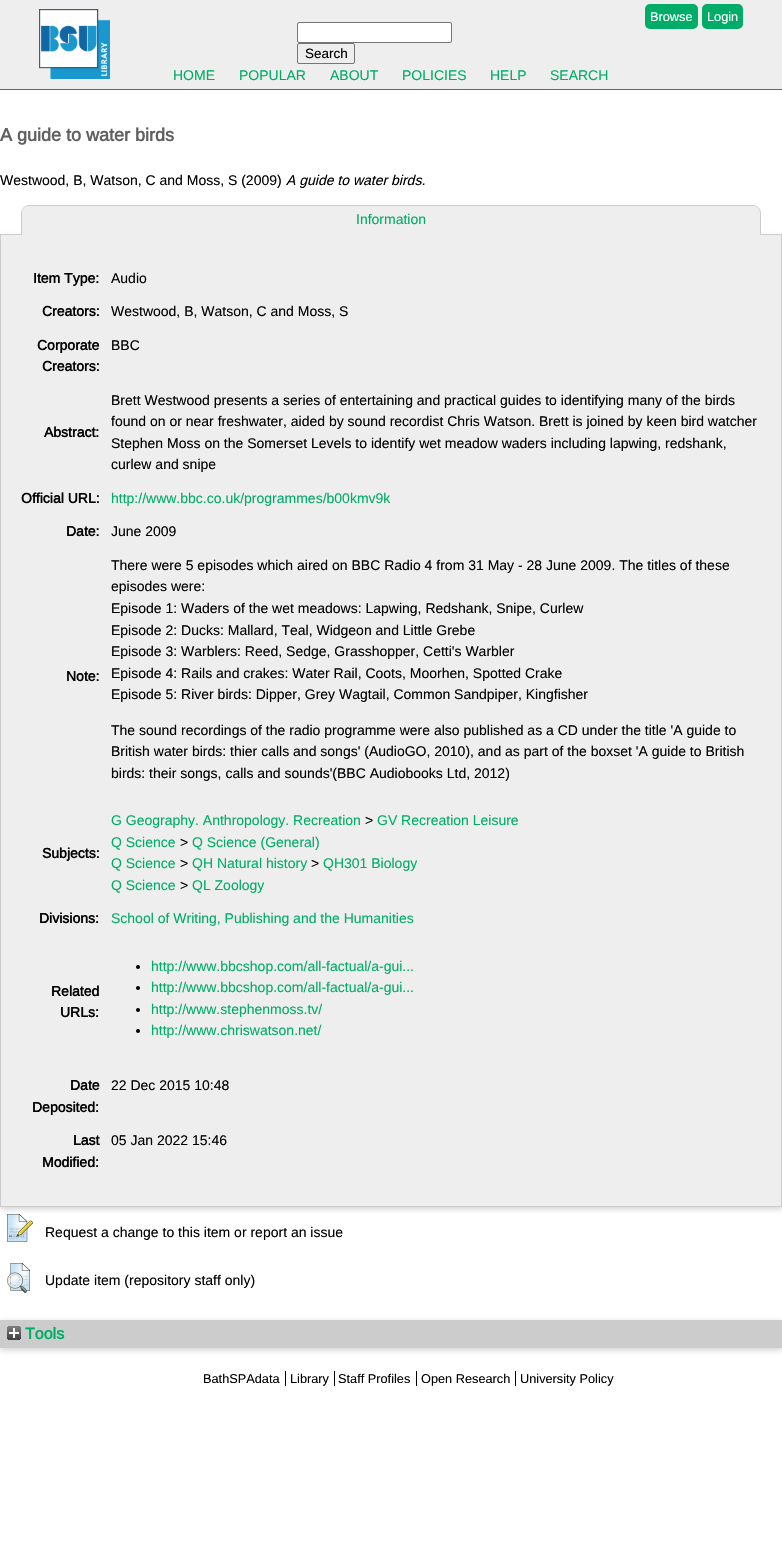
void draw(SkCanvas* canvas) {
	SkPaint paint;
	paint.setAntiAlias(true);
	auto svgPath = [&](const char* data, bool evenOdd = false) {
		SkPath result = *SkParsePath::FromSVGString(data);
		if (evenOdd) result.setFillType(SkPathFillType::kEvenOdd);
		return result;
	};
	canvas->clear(0xffffffff);
	paint.setColor(0xffeeeeee);
	canvas->drawRect(SkRect::MakeXYWH(0, 0, 782, 89), paint);
	paint.setColor(0xff666666);
	canvas->drawRect(SkRect::MakeXYWH(0, 89, 782, 1), paint);
	canvas->drawImageRect(SkImages::DeferredFromEncodedData(SkData::MakeFromFileName("img1.png")), SkRect::MakeXYWH(39, 9, 71, 70), SkSamplingOptions());
	paint.setColor(0xff00ad68);
	canvas->drawRoundRect(SkRect::MakeXYWH(645, 4, 53, 25), 5, 5, paint);
	SkFont f1(fontMgr->matchFamilyStyle("Liberation Sans", SkFontStyle::Normal()), 12.75);
	f1.setSubpixel(true);
	paint.setColor(0xffffffff);
	canvas->drawString("Browse", 650, 21, f1, paint);
	paint.setColor(0xff00ad68);
	canvas->drawRoundRect(SkRect::MakeXYWH(702, 4, 41, 25), 5, 5, paint);
	paint.setColor(0xffffffff);
	canvas->drawString("Login", 707, 21, f1, paint);
	canvas->drawRoundRect(SkRect::MakeXYWH(297.5, 22.5, 154, 20), 1.5, 1.5, paint);
	paint.setStroke(true);
	paint.setStrokeWidth(1);
	paint.setColor(0xff767676);
	canvas->drawRoundRect(SkRect::MakeXYWH(297.5, 22.5, 154, 20), 1.5, 1.5, paint);
	canvas->drawRoundRect(SkRect::MakeXYWH(297.5, 43.5, 57, 20), 1.5, 1.5, paint);
	SkFont f2(fontMgr->matchFamilyStyle("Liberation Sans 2", SkFontStyle::Normal()), 13.5);
	f2.setSubpixel(true);
	paint.setStroke(false);
	paint.setColor(0xff000000);
	canvas->drawString("Search", 305, 58, f2, paint);
	SkFont f3(fontMgr->matchFamilyStyle("Liberation Sans", SkFontStyle::Normal()), 14);
	f3.setSubpixel(true);
	paint.setColor(0xff00ad68);
	canvas->drawString("HOME", 173, 80, f3, paint);
	canvas->drawString("POPULAR", 239, 80, f3, paint);
	canvas->drawString("ABOUT", 330, 80, f3, paint);
	canvas->drawString("POLICIES", 402, 80, f3, paint);
	canvas->drawString("HELP", 490, 80, f3, paint);
	canvas->drawString("SEARCH", 550, 80, f3, paint);
	SkFont f4(fontMgr->matchFamilyStyle("Liberation Sans", SkFontStyle::Bold()), 18);
	f4.setSubpixel(true);
	paint.setColor(0xff606060);
	canvas->drawString("A guide to water birds", 0, 141, f4, paint);
	paint.setColor(0xff000000);
	canvas->drawString("Westwood, B, Watson, C and Moss, S (2009)", 0, 185, f3, paint);
	SkFont f5(fontMgr->matchFamilyStyle("Liberation Sans", SkFontStyle::Italic()), 14);
	f5.setSubpixel(true);
	canvas->drawString("A guide to water birds.", 286, 185, f5, paint);
	paint.setColor(0x4d646464);
	paint.setMaskFilter(SkMaskFilter::MakeBlur(kNormal_SkBlurStyle, 3));
	canvas->drawRect(SkRect::MakeXYWH(0, 237, 782, 972), paint);
	paint.setMaskFilter(nullptr);
	paint.setColor(0xffcccccc);
	canvas->drawRect(SkRect::MakeXYWH(0, 234, 782, 1), paint);
	paint.setColor(0xffeeeeee);
	canvas->drawPath(svgPath("M29 206H753C757 206 760 209 760 213V235H22V213C22 209 25 206 29 206Z"), paint);
	paint.setColor(0xffcccccc);
	canvas->drawPath(svgPath("M29 205H753C757 205 761 209 761 213V235H21V213C21 209 25 205 29 205ZM29 206H753C757 206 760 209 760 213V235H22V213C22 209 25 206 29 206Z", true), paint);
	paint.setColor(0xff00ad68);
	canvas->drawString("Information", 356, 224, f3, paint);
	paint.setColor(0xffeeeeee);
	canvas->drawRect(SkRect::MakeXYWH(1, 235, 780, 971), paint);
	paint.setColor(0xffcccccc);
	canvas->drawRect(SkRect::MakeXYWH(781, 235, 1, 972), paint);
	canvas->drawRect(SkRect::MakeXYWH(0, 1206, 782, 1), paint);
	canvas->drawRect(SkRect::MakeXYWH(0, 235, 1, 972), paint);
	SkFont f6(fontMgr->matchFamilyStyle("Liberation Sans", SkFontStyle::Bold()), 14);
	f6.setSubpixel(true);
	paint.setColor(0xff000000);
	canvas->drawString("Item Type:", 33, 283, f6, paint);
	canvas->drawString("Audio", 111, 283, f3, paint);
	canvas->drawString("Creators:", 42, 316, f6, paint);
	canvas->drawString("Westwood, B, Watson, C and Moss, S", 111, 316, f3, paint);
	canvas->drawString("Corporate", 37, 350, f6, paint);
	canvas->drawString("Creators:", 42, 371, f6, paint);
	canvas->drawString("BBC", 111, 350, f3, paint);
	canvas->drawString("Abstract:", 44, 437, f6, paint);
	canvas->drawString("Brett Westwood presents a series of entertaining and practical guides to identifying many of the birds", 111, 405, f3, paint);
	canvas->drawString("found on or near freshwater, aided by sound recordist Chris Watson. Brett is joined by keen bird watcher", 111, 426, f3, paint);
	canvas->drawString("Stephen Moss on the Somerset Levels to identify wet meadow waders including lapwing, redshank,", 111, 448, f3, paint);
	canvas->drawString("curlew and snipe", 111, 469, f3, paint);
	canvas->drawString("Official URL:", 21, 503, f6, paint);
	paint.setColor(0xff00ad68);
	canvas->drawString("http://www.bbc.co.uk/programmes/b00kmv9k", 111, 503, f3, paint);
	paint.setColor(0xff000000);
	canvas->drawString("Date:", 66, 536, f6, paint);
	canvas->drawString("June 2009", 111, 536, f3, paint);
	canvas->drawString("Note:", 66, 681, f6, paint);
	canvas->drawString("There were 5 episodes which aired on BBC Radio 4 from 31 May - 28 June 2009. The titles of these", 111, 570, f3, paint);
	canvas->drawString("episodes were:", 111, 591, f3, paint);
	canvas->drawString("Episode 1: Waders of the wet meadows: Lapwing, Redshank, Snipe, Curlew", 111, 613, f3, paint);
	canvas->drawString("Episode 2: Ducks: Mallard, Teal, Widgeon and Little Grebe", 111, 635, f3, paint);
	canvas->drawString("Episode 3: Warblers: Reed, Sedge, Grasshopper, Cetti's Warbler", 111, 656, f3, paint);
	canvas->drawString("Episode 4: Rails and crakes: Water Rail, Coots, Moorhen, Spotted Crake", 111, 678, f3, paint);
	canvas->drawString("Episode 5: River birds: Dipper, Grey Wagtail, Common Sandpiper, Kingfisher", 111, 699, f3, paint);
	canvas->drawString("The sound recordings of the radio programme were also published as a CD under the title 'A guide to", 111, 735, f3, paint);
	canvas->drawString("British water birds: thier calls and songs' (AudioGO, 2010), and as part of the boxset 'A guide to British", 111, 756, f3, paint);
	canvas->drawString("birds: their songs, calls and sounds'(BBC Audiobooks Ltd, 2012)", 111, 778, f3, paint);
	canvas->drawString("Subjects:", 42, 858, f6, paint);
	paint.setColor(0xff00ad68);
	canvas->drawString("G Geography. Anthropology. Recreation", 111, 825, f3, paint);
	paint.setColor(0xff000000);
	canvas->drawString(">", 365, 825, f3, paint);
	paint.setColor(0xff00ad68);
	canvas->drawString("GV Recreation Leisure", 377, 825, f3, paint);
	canvas->drawString("Q Science", 111, 847, f3, paint);
	paint.setColor(0xff000000);
	canvas->drawString(">", 180, 847, f3, paint);
	paint.setColor(0xff00ad68);
	canvas->drawString("Q Science (General)", 192, 847, f3, paint);
	canvas->drawString("Q Science", 111, 868, f3, paint);
	paint.setColor(0xff000000);
	canvas->drawString(">", 180, 868, f3, paint);
	paint.setColor(0xff00ad68);
	canvas->drawString("QH Natural history", 192, 868, f3, paint);
	paint.setColor(0xff000000);
	canvas->drawString(">", 311, 868, f3, paint);
	paint.setColor(0xff00ad68);
	canvas->drawString("QH301 Biology", 323, 868, f3, paint);
	canvas->drawString("Q Science", 111, 890, f3, paint);
	paint.setColor(0xff000000);
	canvas->drawString(">", 180, 890, f3, paint);
	paint.setColor(0xff00ad68);
	canvas->drawString("QL Zoology", 192, 890, f3, paint);
	paint.setColor(0xff000000);
	canvas->drawString("Divisions:", 39, 923, f6, paint);
	paint.setColor(0xff00ad68);
	canvas->drawString("School of Writing, Publishing and the Humanities", 111, 923, f3, paint);
	paint.setColor(0xff000000);
	canvas->drawString("Related", 51, 996, f6, paint);
	canvas->drawString("URLs:", 60, 1017, f6, paint);
	canvas->drawCircle(138, 967, 2, paint);
	paint.setColor(0xff00ad68);
	canvas->drawString("http://www.bbcshop.com/all-factual/a-gui...", 151, 971, f3, paint);
	paint.setColor(0xff000000);
	canvas->drawCircle(138, 988, 2, paint);
	paint.setColor(0xff00ad68);
	canvas->drawString("http://www.bbcshop.com/all-factual/a-gui...", 151, 992, f3, paint);
	paint.setColor(0xff000000);
	canvas->drawCircle(138, 1010, 2, paint);
	paint.setColor(0xff00ad68);
	canvas->drawString("http://www.stephenmoss.tv/", 151, 1014, f3, paint);
	paint.setColor(0xff000000);
	canvas->drawCircle(138, 1031, 2, paint);
	paint.setColor(0xff00ad68);
	canvas->drawString("http://www.chriswatson.net/", 151, 1035, f3, paint);
	paint.setColor(0xff000000);
	canvas->drawString("Date", 70, 1090, f6, paint);
	canvas->drawString("Deposited:", 32, 1112, f6, paint);
	canvas->drawString("22 Dec 2015 10:48", 111, 1090, f3, paint);
	canvas->drawString("Last", 73, 1145, f6, paint);
	canvas->drawString("Modified:", 42, 1167, f6, paint);
	canvas->drawString("05 Jan 2022 15:46", 111, 1145, f3, paint);
	canvas->drawImageRect(SkImages::DeferredFromEncodedData(SkData::MakeFromFileName("img2.png")), SkRect::MakeXYWH(7, 1214, 26, 28), SkSamplingOptions());
	canvas->drawString("Request a change to this item or report an issue", 45, 1237, f3, paint);
	canvas->drawImageRect(SkImages::DeferredFromEncodedData(SkData::MakeFromFileName("img3.png")), SkRect::MakeXYWH(7, 1263, 23, 30), SkSamplingOptions());
	canvas->drawString("Update item (repository staff only)", 45, 1285, f3, paint);
	paint.setColor(0x4d646464);
	paint.setMaskFilter(SkMaskFilter::MakeBlur(kNormal_SkBlurStyle, 3));
	canvas->drawRect(SkRect::MakeXYWH(0, 1322, 782, 28), paint);
	paint.setMaskFilter(nullptr);
	paint.setColor(0xffcccccc);
	canvas->drawRect(SkRect::MakeXYWH(0, 1320, 782, 28), paint);
	canvas->drawImageRect(SkImages::DeferredFromEncodedData(SkData::MakeFromFileName("img4.png")), SkRect::MakeXYWH(7, 1326, 14, 14), SkSamplingOptions());
	SkFont f7(fontMgr->matchFamilyStyle("Liberation Sans", SkFontStyle::Bold()), 16);
	f7.setSubpixel(true);
	paint.setColor(0xff00ad68);
	canvas->drawString("Tools", 25, 1339, f7, paint);
	paint.setColor(0xff000000);
	canvas->drawRect(SkRect::MakeXYWH(285, 1371, 1, 15), paint);
	canvas->drawString("BathSPAdata", 203, 1383, f1, paint);
	canvas->drawRect(SkRect::MakeXYWH(334, 1371, 1, 15), paint);
	canvas->drawString("Library", 290, 1383, f1, paint);
	canvas->drawRect(SkRect::MakeXYWH(416, 1371, 1, 15), paint);
	canvas->drawString("Staff Profiles", 338, 1383, f1, paint);
	canvas->drawRect(SkRect::MakeXYWH(515, 1371, 1, 15), paint);
	canvas->drawString("Open Research", 421, 1383, f1, paint);
	canvas->drawString("University Policy", 520, 1383, f1, paint);
}
